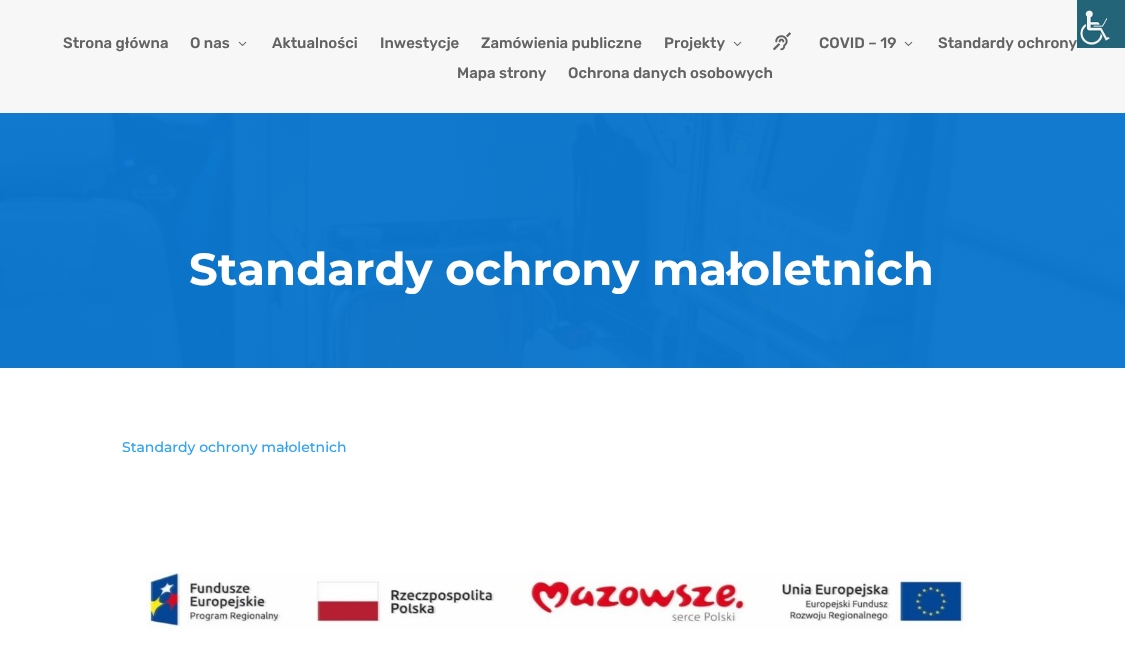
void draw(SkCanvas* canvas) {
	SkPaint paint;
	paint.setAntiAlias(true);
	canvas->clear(0xffffffff);
	paint.setColor(0xfff7f7f7);
	canvas->drawRect(SkRect::MakeXYWH(0, 0, 1125, 113), paint);
	SkFont f1(fontMgr->matchFamilyStyle("Rubik", SkFontStyle(500, SkFontStyle::kNormal_Width, SkFontStyle::kUpright_Slant)), 15);
	f1.setSubpixel(true);
	paint.setColor(0xff636363);
	canvas->drawString("Standardy ochrony", 938, 48, f1, paint);
	canvas->drawImageRect(SkImages::DeferredFromEncodedData(SkData::MakeFromFileName("img1.png")), SkRect::MakeXYWH(1077, 0, 48, 48), SkSamplingOptions());
	canvas->drawString("Strona główna", 63, 48, f1, paint);
	canvas->drawString("O nas", 190, 48, f1, paint);
	canvas->drawImageRect(SkImages::DeferredFromEncodedData(SkData::MakeFromFileName("img2.png")), SkRect::MakeXYWH(238, 41, 9, 5), SkSamplingOptions());
	canvas->drawString("Aktualności", 272, 48, f1, paint);
	canvas->drawString("Inwestycje", 380, 48, f1, paint);
	canvas->drawString("Zamówienia publiczne", 481, 48, f1, paint);
	canvas->drawString("Projekty", 664, 48, f1, paint);
	canvas->drawImageRect(SkImages::DeferredFromEncodedData(SkData::MakeFromFileName("img2.png")), SkRect::MakeXYWH(733, 41, 9, 5), SkSamplingOptions());
	canvas->drawImageRect(SkImages::DeferredFromEncodedData(SkData::MakeFromFileName("img3.png")), SkRect::MakeXYWH(773, 32, 18, 19), SkSamplingOptions());
	canvas->drawString("COVID – 19", 819, 48, f1, paint);
	canvas->drawImageRect(SkImages::DeferredFromEncodedData(SkData::MakeFromFileName("img2.png")), SkRect::MakeXYWH(904, 41, 9, 5), SkSamplingOptions());
	canvas->drawString("Mapa strony", 457, 78, f1, paint);
	canvas->drawString("Ochrona danych osobowych", 568, 78, f1, paint);
	canvas->drawImageRect(SkImages::DeferredFromEncodedData(SkData::MakeFromFileName("img4.png")), SkRect::MakeXYWH(0, 113, 1125, 255), SkSamplingOptions());
	SkFont f2(fontMgr->matchFamilyStyle("Montserrat", SkFontStyle::Bold()), 45);
	f2.setSubpixel(true);
	paint.setColor(0xffffffff);
	canvas->drawString("Standardy ochrony małoletnich", 189, 285, f2, paint);
	SkFont f3(fontMgr->matchFamilyStyle("Montserrat", SkFontStyle(500, SkFontStyle::kNormal_Width, SkFontStyle::kUpright_Slant)), 14);
	f3.setSubpixel(true);
	paint.setColor(0xff2ea3f2);
	canvas->drawString("Standardy ochrony małoletnich", 122, 452, f3, paint);
	canvas->drawImageRect(SkImages::DeferredFromEncodedData(SkData::MakeFromFileName("img5.png")), SkRect::MakeXYWH(146, 572, 822, 57), SkSamplingOptions());
}
